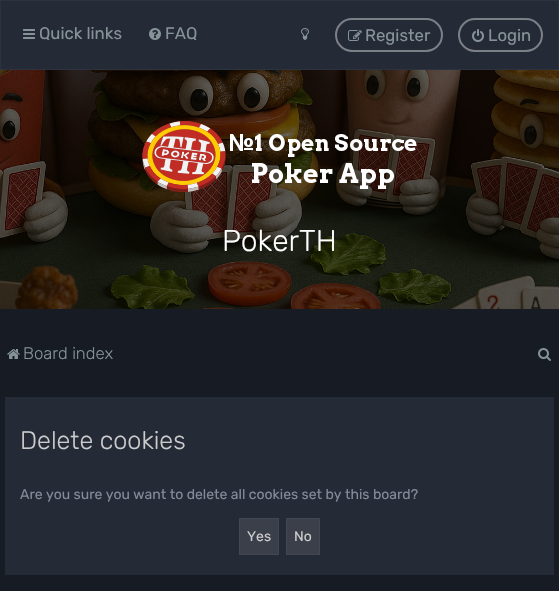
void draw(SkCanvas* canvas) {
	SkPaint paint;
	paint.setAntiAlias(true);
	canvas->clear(0xffffffff);
	paint.setColor(0xff242a36);
	canvas->drawRect(SkRect::MakeXYWH(0.5, 0.5, 558, 69), paint);
	paint.setStroke(true);
	paint.setStrokeWidth(1);
	paint.setColor(0xff2d333e);
	canvas->drawRect(SkRect::MakeXYWH(0.5, 0.5, 558, 69), paint);
	canvas->drawImageRect(SkImages::DeferredFromEncodedData(SkData::MakeFromFileName("img1.png")), SkRect::MakeXYWH(23, 29, 12, 10), SkSamplingOptions());
	SkFont f1(fontMgr->matchFamilyStyle("Rubik", SkFontStyle::Normal()), 16.75);
	f1.setSubpixel(true);
	paint.setStroke(false);
	paint.setColor(0xff859398);
	canvas->drawString("Quick links", 39, 39, f1, paint);
	canvas->drawImageRect(SkImages::DeferredFromEncodedData(SkData::MakeFromFileName("img2.png")), SkRect::MakeXYWH(149, 28, 12, 12), SkSamplingOptions());
	canvas->drawString("FAQ", 165, 39, f1, paint);
	canvas->drawImageRect(SkImages::DeferredFromEncodedData(SkData::MakeFromFileName("img3.png")), SkRect::MakeXYWH(301, 28, 8, 12), SkSamplingOptions());
	paint.setStroke(true);
	paint.setStrokeWidth(2);
	paint.setColor(0xff7c7f86);
	canvas->drawRoundRect(SkRect::MakeXYWH(336, 19, 106, 32), 16, 16, paint);
	canvas->drawImageRect(SkImages::DeferredFromEncodedData(SkData::MakeFromFileName("img4.png")), SkRect::MakeXYWH(348, 30, 14, 11), SkSamplingOptions());
	paint.setStroke(false);
	paint.setColor(0xff859398);
	canvas->drawString("Register", 365, 41, f1, paint);
	paint.setStroke(true);
	paint.setColor(0xff7c7f86);
	canvas->drawRoundRect(SkRect::MakeXYWH(459, 19, 83, 32), 16, 16, paint);
	canvas->drawImageRect(SkImages::DeferredFromEncodedData(SkData::MakeFromFileName("img5.png")), SkRect::MakeXYWH(472, 29, 12, 13), SkSamplingOptions());
	paint.setStroke(false);
	paint.setColor(0xff859398);
	canvas->drawString("Login", 488, 41, f1, paint);
	canvas->drawImageRect(SkImages::DeferredFromEncodedData(SkData::MakeFromFileName("img9.png")), SkRect::MakeXYWH(0, 70, 559, 239), SkSamplingOptions());
	canvas->drawImageRect(SkImages::DeferredFromEncodedData(SkData::MakeFromFileName("img6.png")), SkRect::MakeXYWH(142, 121, 275, 72), SkSamplingOptions());
	SkFont f2(fontMgr->matchFamilyStyle("Rubik", SkFontStyle(300, SkFontStyle::kNormal_Width, SkFontStyle::kUpright_Slant)), 30);
	f2.setSubpixel(true);
	paint.setColor(0xffffffff);
	canvas->drawString("PokerTH", 222, 251, f2, paint);
	paint.setColor(0x0d000000);
	paint.setMaskFilter(SkMaskFilter::MakeBlur(kNormal_SkBlurStyle, 2.5));
	canvas->drawRect(SkRect::MakeXYWH(0, 309, 559, 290), paint);
	paint.setMaskFilter(nullptr);
	paint.setColor(0xff171b24);
	canvas->drawRect(SkRect::MakeXYWH(0, 309, 559, 282), paint);
	canvas->drawImageRect(SkImages::DeferredFromEncodedData(SkData::MakeFromFileName("img7.png")), SkRect::MakeXYWH(7, 349, 13, 10), SkSamplingOptions());
	SkFont f3(fontMgr->matchFamilyStyle("Rubik", SkFontStyle(300, SkFontStyle::kNormal_Width, SkFontStyle::kUpright_Slant)), 16.75);
	f3.setSubpixel(true);
	paint.setColor(0xff859398);
	canvas->drawString("Board index", 23, 359, f3, paint);
	canvas->drawImageRect(SkImages::DeferredFromEncodedData(SkData::MakeFromFileName("img8.png")), SkRect::MakeXYWH(538, 348, 13, 13), SkSamplingOptions());
	paint.setColor(0xff242a36);
	canvas->drawRect(SkRect::MakeXYWH(5, 397, 549, 178), paint);
	SkFont f4(fontMgr->matchFamilyStyle("Rubik", SkFontStyle(300, SkFontStyle::kNormal_Width, SkFontStyle::kUpright_Slant)), 25.25);
	f4.setSubpixel(true);
	paint.setColor(0xffcccccc);
	canvas->drawString("Delete cookies", 20, 449, f4, paint);
	SkFont f5(fontMgr->matchFamilyStyle("Rubik", SkFontStyle::Normal()), 14);
	f5.setSubpixel(true);
	paint.setColor(0xff838b98);
	canvas->drawString("Are you sure you want to delete all cookies set by this board?", 20, 499, f5, paint);
	paint.setColor(0xff3a3f4a);
	canvas->drawRect(SkRect::MakeXYWH(239.5, 518.5, 39, 36), paint);
	paint.setStroke(true);
	paint.setStrokeWidth(1);
	paint.setColor(0xff424751);
	canvas->drawRect(SkRect::MakeXYWH(239.5, 518.5, 39, 36), paint);
	paint.setStroke(false);
	paint.setColor(0xffcccccc);
	canvas->drawString("Yes", 247, 541, f5, paint);
	paint.setColor(0xff3a3f4a);
	canvas->drawRect(SkRect::MakeXYWH(286.5, 518.5, 33, 36), paint);
	paint.setStroke(true);
	paint.setColor(0xff424751);
	canvas->drawRect(SkRect::MakeXYWH(286.5, 518.5, 33, 36), paint);
	paint.setStroke(false);
	paint.setColor(0xffcccccc);
	canvas->drawString("No", 294, 541, f5, paint);
}
